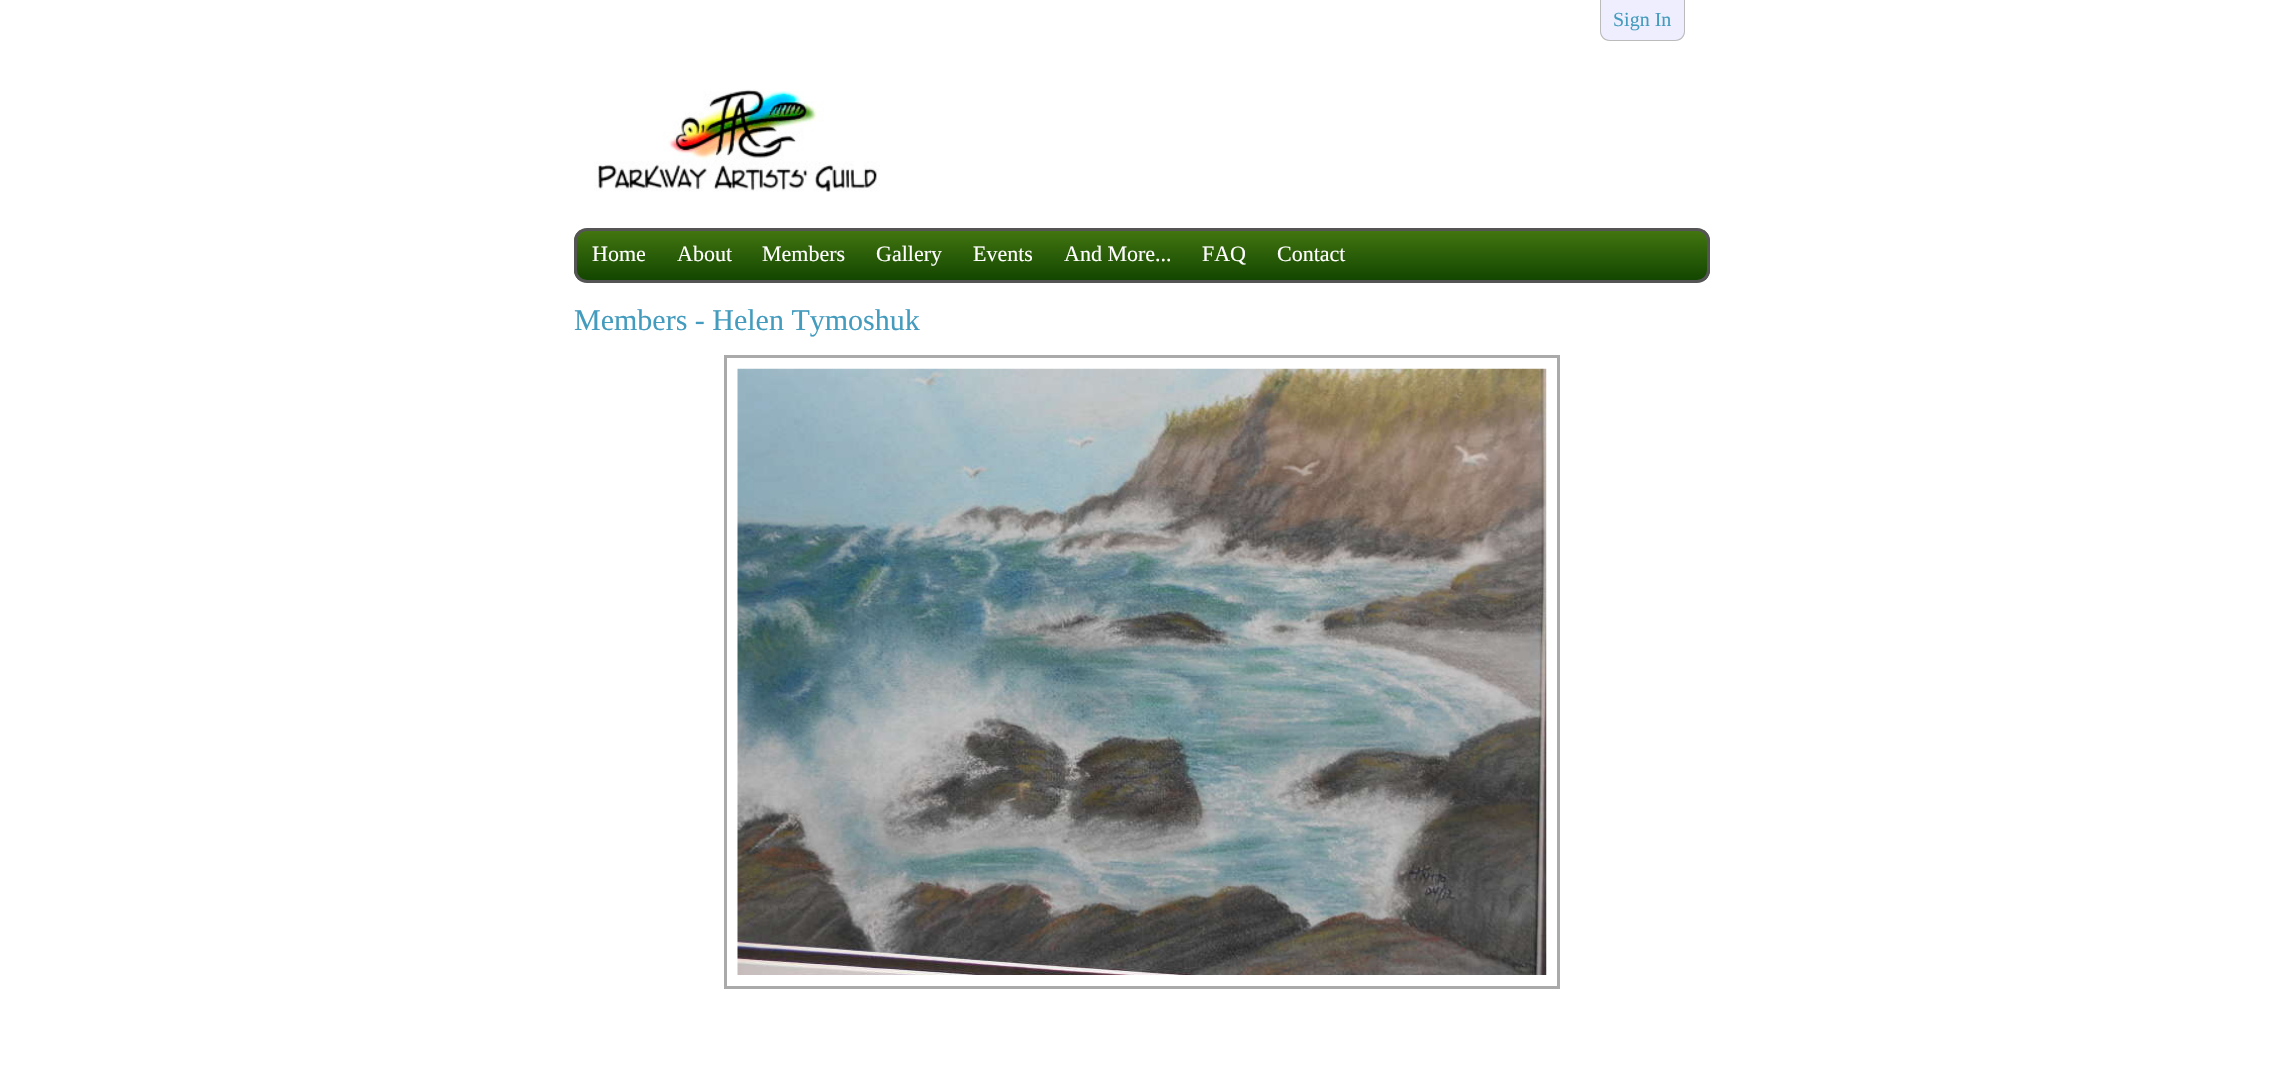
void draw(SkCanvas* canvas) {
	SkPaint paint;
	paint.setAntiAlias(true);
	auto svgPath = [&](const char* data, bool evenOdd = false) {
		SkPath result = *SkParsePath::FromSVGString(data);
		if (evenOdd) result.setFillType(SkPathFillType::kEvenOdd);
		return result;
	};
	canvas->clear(0xffffffff);
	paint.setColor(0xffeeeeff);
	canvas->drawPath(svgPath("M1600 0H1685V31C1685 36.5 1680.5 41 1675 41H1610C1604.5 41 1600 36.5 1600 31Z"), paint);
	paint.setColor(0xffbbbbbb);
	canvas->drawPath(svgPath("M1600 0H1685V31C1685 37 1681 41 1675 41H1610C1604 41 1600 37 1600 31ZM1601 0H1684V31C1684 36 1680 40 1675 40H1610C1605 40 1601 36 1601 31Z", true), paint);
	SkFont f1(fontMgr->matchFamilyStyle("Liberation Serif", SkFontStyle::Normal()), 20);
	f1.setSubpixel(true);
	paint.setColor(0xff439bbd);
	canvas->drawString("Sign In", 1613, 26, f1, paint);
	canvas->drawImageRect(SkImages::DeferredFromEncodedData(SkData::MakeFromFileName("img1.png")), SkRect::MakeXYWH(594, 89, 286, 103), SkSamplingOptions());
	canvas->save();
	canvas->clipPath(svgPath("M587 228H1697C1704 228 1710 234 1710 241V270C1710 277 1704 283 1697 283H587C580 283 574 277 574 270V241C574 234 580 228 587 228Z"), true);
	{
		const SkColor colors[] = {0xff437610, 0xff134600};
		const float stops[] = {0, 1};
		const SkPoint ends[] = {{1142, 230}, {1142, 280}};
		paint.setShader(SkGradientShader::MakeLinear(ends, colors, stops, 2, SkTileMode::kClamp));
		paint.setAlpha(255);
	}
	canvas->drawRect(SkRect::MakeXYWH(574, 230, 1136, 50), paint);
	canvas->restore();
	paint.setStroke(true);
	paint.setStrokeWidth(3);
	paint.setShader(nullptr);
	paint.setColor(0xff555555);
	canvas->drawRoundRect(SkRect::MakeXYWH(575.5, 229.5, 1133, 52), 11.5, 11.5, paint);
	SkFont f2(fontMgr->matchFamilyStyle("Liberation Serif", SkFontStyle::Normal()), 22);
	f2.setSubpixel(true);
	paint.setStroke(false);
	paint.setColor(0xffffffff);
	canvas->drawString("Home", 592, 261, f2, paint);
	canvas->drawString("About", 677, 261, f2, paint);
	canvas->drawString("Members", 762, 261, f2, paint);
	canvas->drawString("Gallery", 876, 261, f2, paint);
	canvas->drawString("Events", 973, 261, f2, paint);
	canvas->drawString("And More...", 1064, 261, f2, paint);
	canvas->drawString("FAQ", 1202, 261, f2, paint);
	canvas->drawString("Contact", 1277, 261, f2, paint);
	SkFont f3(fontMgr->matchFamilyStyle("Liberation Serif", SkFontStyle::Normal()), 30);
	f3.setSubpixel(true);
	paint.setColor(0xff439bbd);
	canvas->drawString("Members - Helen Tymoshuk", 574, 330, f3, paint);
	paint.setStroke(true);
	paint.setColor(0xffaaaaaa);
	canvas->drawRect(SkRect::MakeXYWH(725.5, 356.5, 833, 631), paint);
	canvas->drawImageRect(SkImages::DeferredFromEncodedData(SkData::MakeFromFileName("img2.png")), SkRect::MakeXYWH(737, 368, 810, 607), SkSamplingOptions());
}
